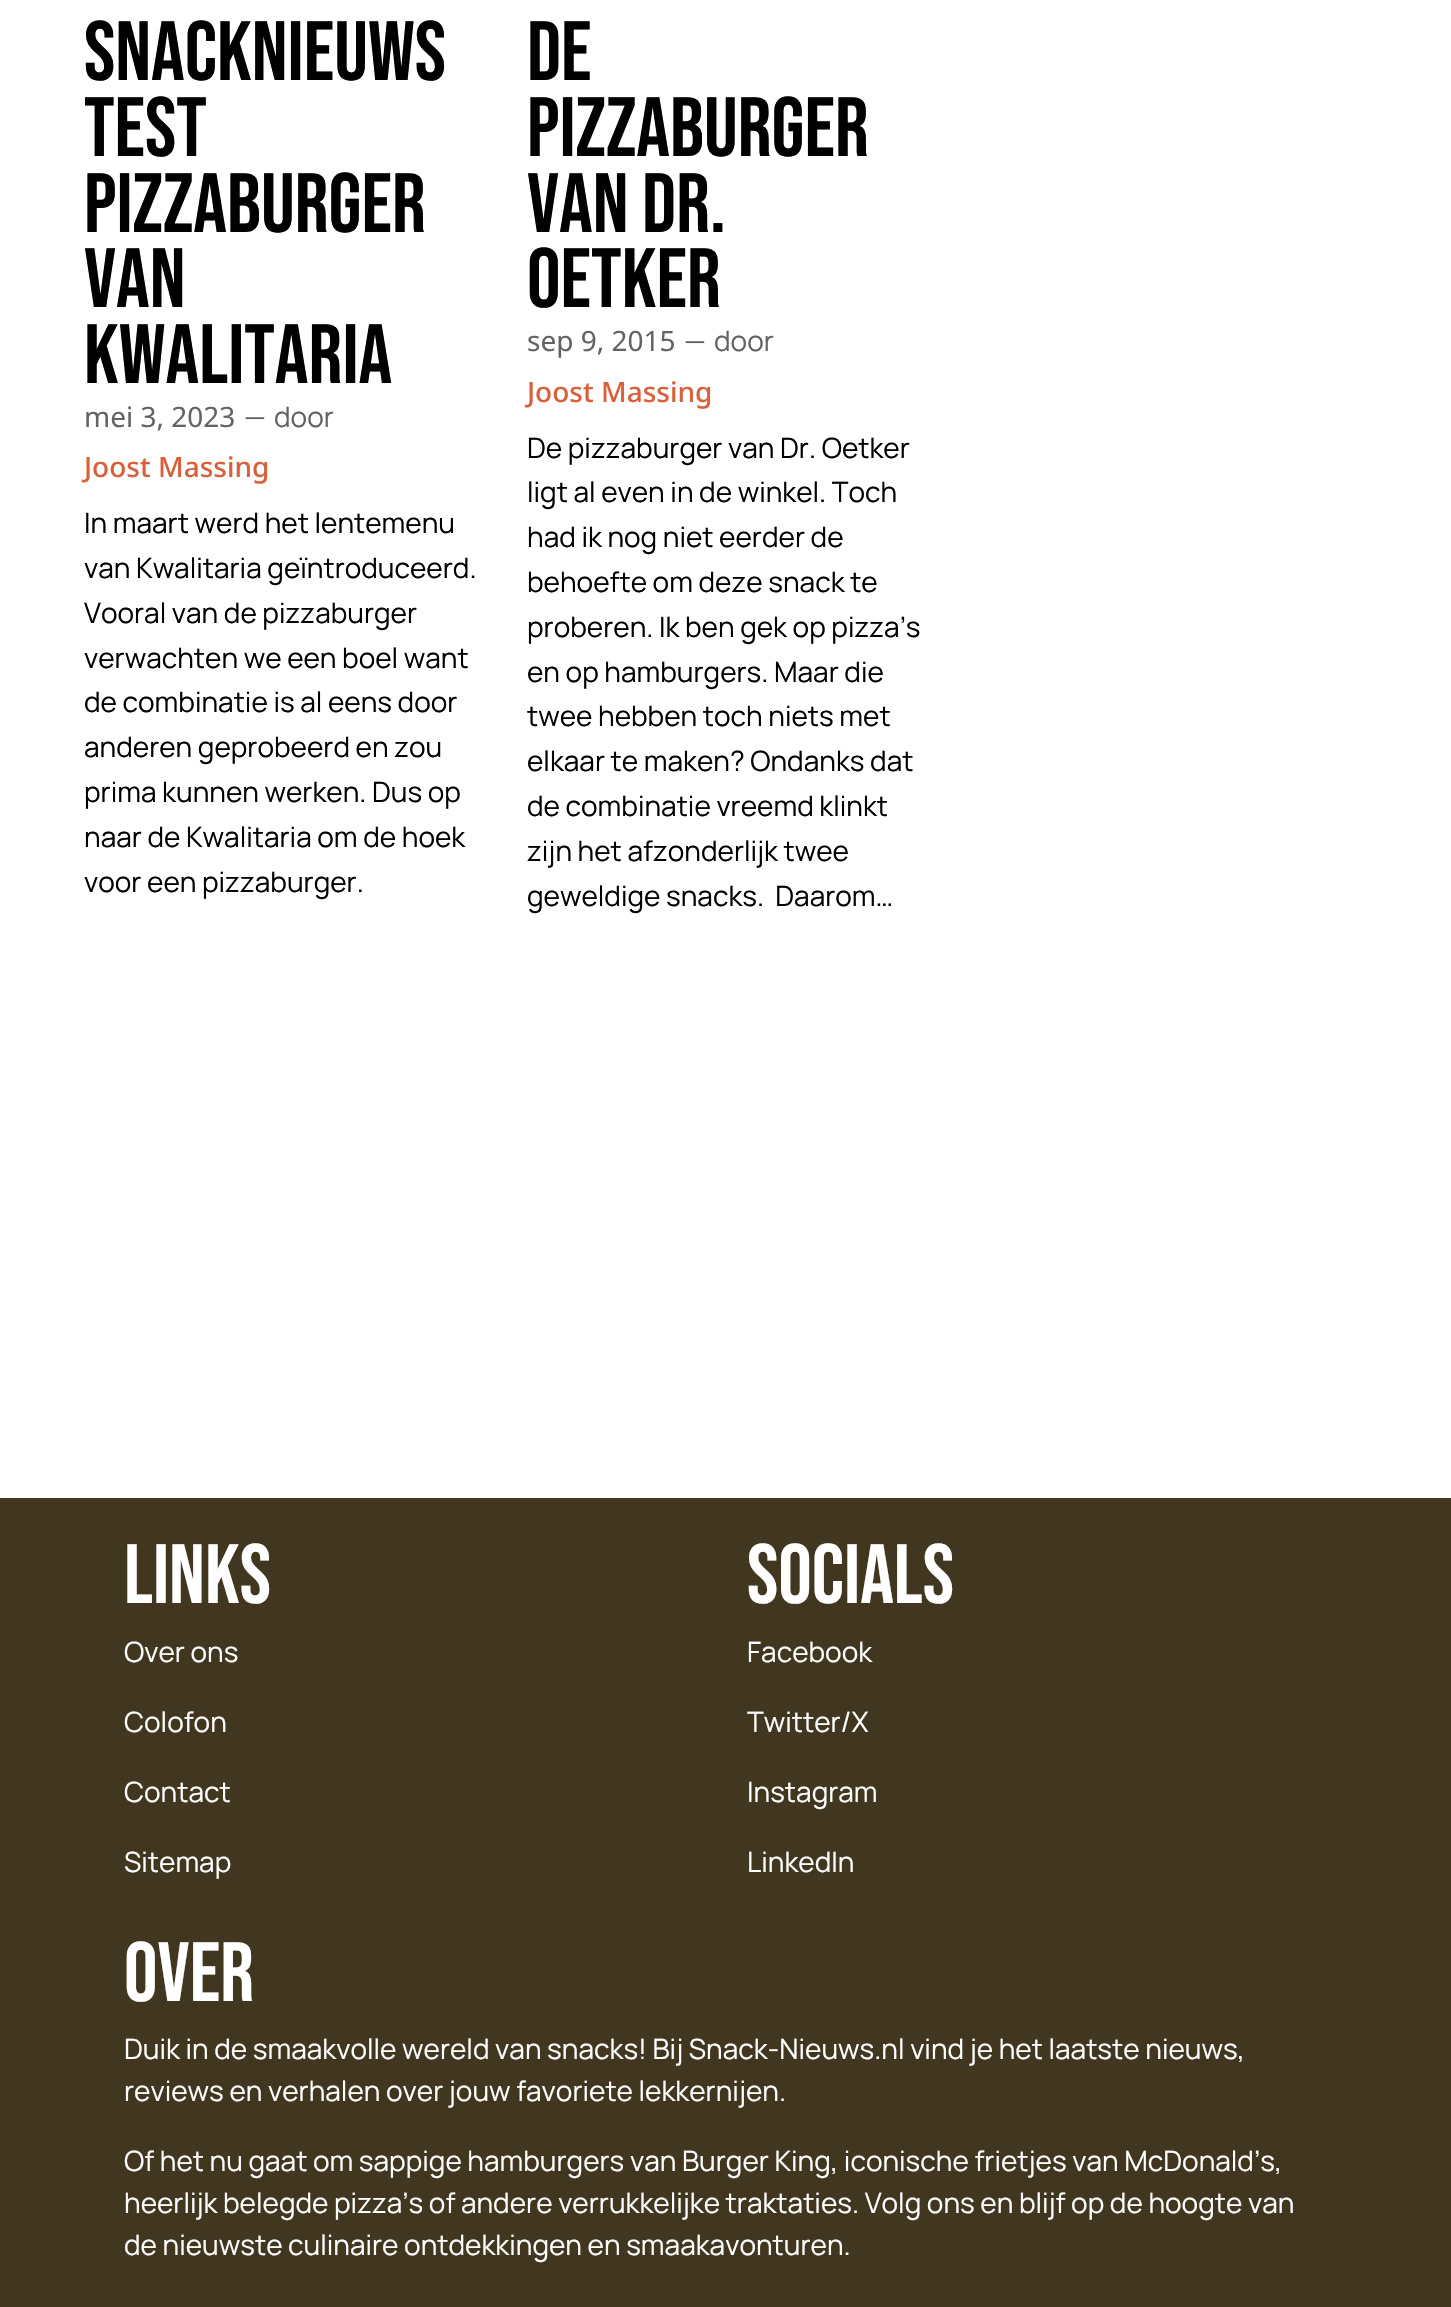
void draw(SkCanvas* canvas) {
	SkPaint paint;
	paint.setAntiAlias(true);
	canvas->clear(0xffffffff);
	SkFont f1(fontMgr->matchFamilyStyle("Bebas Neue", SkFontStyle::Normal()), 84);
	f1.setSubpixel(true);
	paint.setColor(0xff000000);
	canvas->drawString("Snacknieuws", 84, 80, f1, paint);
	canvas->drawString("test", 84, 156, f1, paint);
	canvas->drawString("pizzaburger", 84, 232, f1, paint);
	canvas->drawString("van", 84, 307, f1, paint);
	canvas->drawString("Kwalitaria", 84, 383, f1, paint);
	SkFont f2(fontMgr->matchFamilyStyle("Noto Sans", SkFontStyle::Normal()), 28);
	f2.setSubpixel(true);
	paint.setColor(0xff636363);
	canvas->drawString("mei 3, 2023", 84, 427, f2, paint);
	SkFont f3(fontMgr->matchFamilyStyle("Manrope", SkFontStyle::Normal()), 28);
	f3.setSubpixel(true);
	canvas->drawString("—", 244, 427, f3, paint);
	canvas->drawString("door", 274, 427, f3, paint);
	SkFont f4(fontMgr->matchFamilyStyle("Noto Sans", SkFontStyle(500, SkFontStyle::kNormal_Width, SkFontStyle::kUpright_Slant)), 28);
	f4.setSubpixel(true);
	paint.setColor(0xffd8613c);
	canvas->drawString("Joost Massing", 84, 477, f4, paint);
	paint.setColor(0xff000000);
	canvas->drawString("In maart werd het lentemenu", 84, 533, f3, paint);
	canvas->drawString("van Kwalitaria geïntroduceerd.", 84, 578, f3, paint);
	canvas->drawString("Vooral van de pizzaburger", 84, 623, f3, paint);
	canvas->drawString("verwachten we een boel want", 84, 668, f3, paint);
	canvas->drawString("de combinatie is al eens door", 84, 712, f3, paint);
	canvas->drawString("anderen geprobeerd en zou", 84, 757, f3, paint);
	canvas->drawString("prima kunnen werken. Dus op", 84, 802, f3, paint);
	canvas->drawString("naar de Kwalitaria om de hoek", 84, 847, f3, paint);
	canvas->drawString("voor een pizzaburger.", 84, 892, f3, paint);
	canvas->drawString("De", 527, 80, f1, paint);
	canvas->drawString("pizzaburger", 527, 156, f1, paint);
	canvas->drawString("van Dr.", 527, 232, f1, paint);
	canvas->drawString("Oetker", 527, 307, f1, paint);
	paint.setColor(0xff636363);
	canvas->drawString("sep 9, 2015", 527, 351, f2, paint);
	canvas->drawString("—", 684, 351, f3, paint);
	canvas->drawString("door", 714, 351, f3, paint);
	paint.setColor(0xffd8613c);
	canvas->drawString("Joost Massing", 527, 402, f4, paint);
	paint.setColor(0xff000000);
	canvas->drawString("De pizzaburger van Dr. Oetker", 527, 458, f3, paint);
	canvas->drawString("ligt al even in de winkel. Toch", 527, 502, f3, paint);
	canvas->drawString("had ik nog niet eerder de", 527, 547, f3, paint);
	canvas->drawString("behoefte om deze snack te", 527, 592, f3, paint);
	canvas->drawString("proberen. Ik ben gek op pizza’s", 527, 637, f3, paint);
	canvas->drawString("en op hamburgers. Maar die", 527, 682, f3, paint);
	canvas->drawString("twee hebben toch niets met", 527, 726, f3, paint);
	canvas->drawString("elkaar te maken? Ondanks dat", 527, 771, f3, paint);
	canvas->drawString("de combinatie vreemd klinkt", 527, 816, f3, paint);
	canvas->drawString("zijn het afzonderlijk twee", 527, 861, f3, paint);
	canvas->drawString("geweldige snacks.  Daarom…", 527, 906, f3, paint);
	paint.setColor(0xff413620);
	canvas->drawRect(SkRect::MakeXYWH(0, 1498, 1451, 809), paint);
	paint.setColor(0xffffffff);
	canvas->drawString("Links", 124, 1603, f1, paint);
	canvas->drawString("Over ons", 124, 1662, f3, paint);
	canvas->drawString("Colofon", 124, 1732, f3, paint);
	canvas->drawString("Contact", 124, 1802, f3, paint);
	canvas->drawString("Sitemap", 124, 1872, f3, paint);
	canvas->drawString("Socials", 747, 1603, f1, paint);
	canvas->drawString("Facebook", 747, 1662, f3, paint);
	canvas->drawString("Twitter/X", 747, 1732, f3, paint);
	canvas->drawString("Instagram", 747, 1802, f3, paint);
	canvas->drawString("LinkedIn", 747, 1872, f3, paint);
	canvas->drawString("Over", 124, 2001, f1, paint);
	canvas->drawString("Duik in de smaakvolle wereld van snacks! Bij Snack-Nieuws.nl vind je het laatste nieuws,", 124, 2059, f3, paint);
	canvas->drawString("reviews en verhalen over jouw favoriete lekkernijen.", 124, 2101, f3, paint);
	canvas->drawString("Of het nu gaat om sappige hamburgers van Burger King, iconische frietjes van McDonald’s,", 124, 2171, f3, paint);
	canvas->drawString("heerlijk belegde pizza’s of andere verrukkelijke traktaties. Volg ons en blijf op de hoogte van", 124, 2213, f3, paint);
	canvas->drawString("de nieuwste culinaire ontdekkingen en smaakavonturen.", 124, 2255, f3, paint);
}
